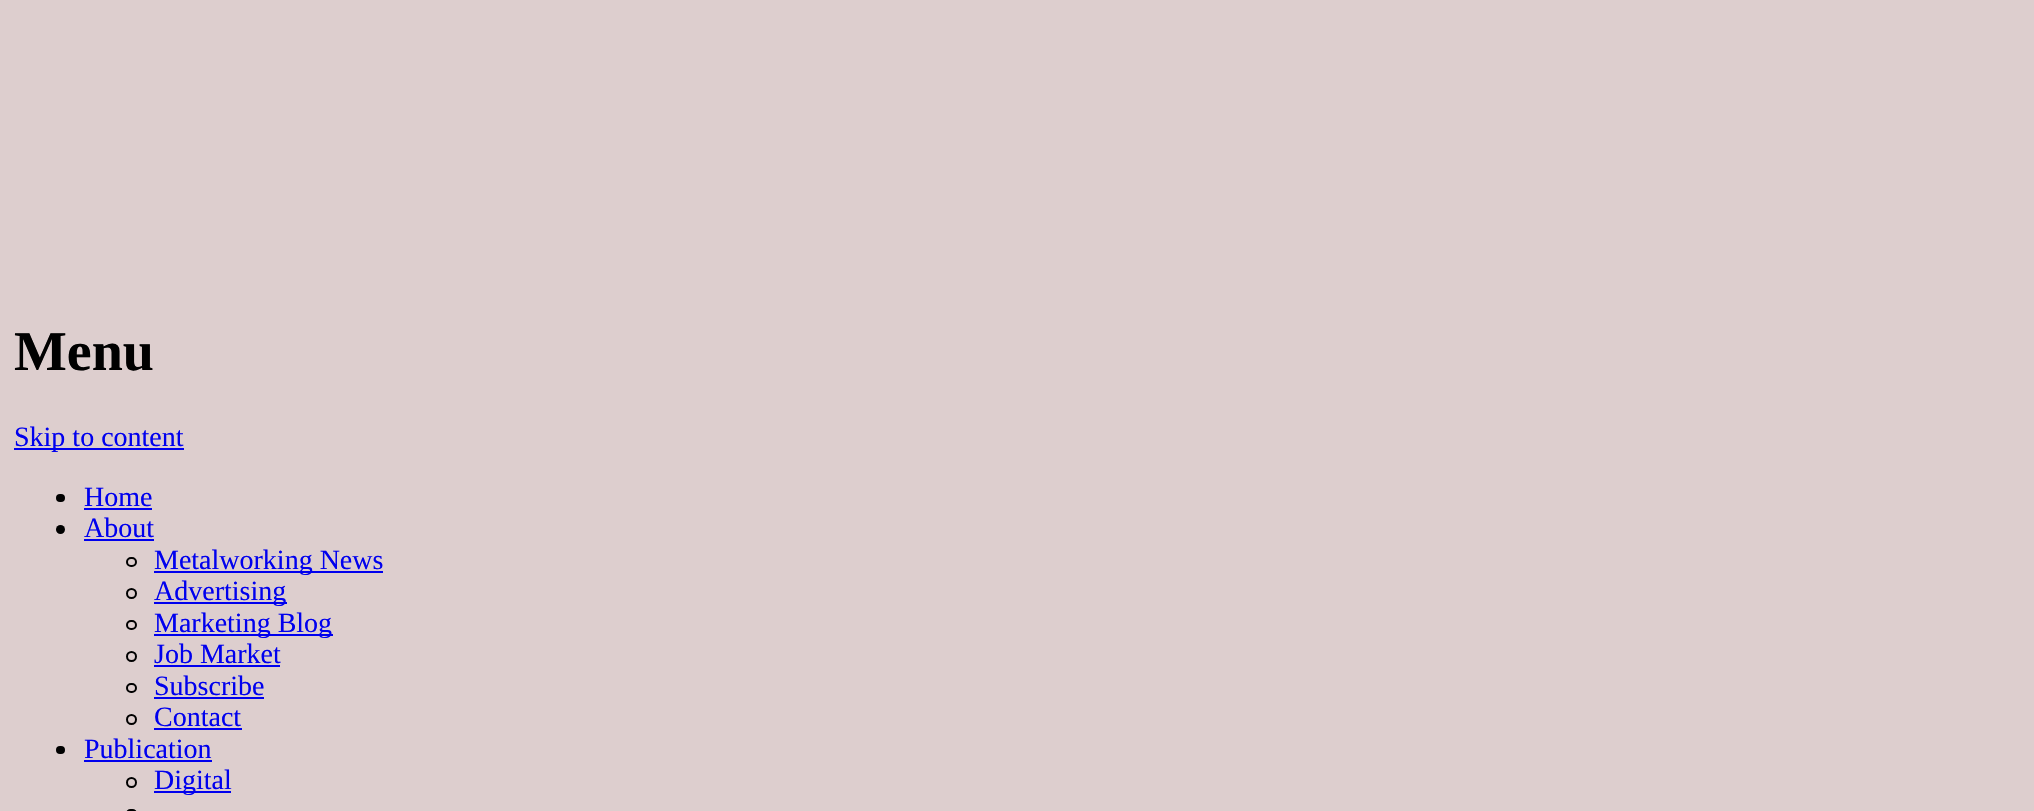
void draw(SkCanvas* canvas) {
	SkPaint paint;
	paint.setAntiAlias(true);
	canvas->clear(0xffddcece);
	SkFont f1(fontMgr->matchFamilyStyle("Liberation Serif", SkFontStyle::Bold()), 56);
	f1.setSubpixel(true);
	paint.setColor(0xff000000);
	canvas->drawString("Menu", 14, 370, f1, paint);
	paint.setColor(0xff0000ee);
	canvas->drawRect(SkRect::MakeXYWH(14, 448, 170, 2), paint);
	SkFont f2(fontMgr->matchFamilyStyle("Liberation Serif", SkFontStyle::Normal()), 28);
	f2.setSubpixel(true);
	canvas->drawString("Skip to content", 14, 446, f2, paint);
	paint.setColor(0xff000000);
	canvas->drawRoundRect(SkRect::MakeXYWH(56, 494, 9, 8), 4, 4, paint);
	paint.setColor(0xff0000ee);
	canvas->drawString("Home", 84, 506, f2, paint);
	canvas->drawRect(SkRect::MakeXYWH(84, 508, 68, 2), paint);
	paint.setColor(0xff000000);
	canvas->drawCircle(60.5, 529.5, 4.5, paint);
	paint.setColor(0xff0000ee);
	canvas->drawString("About", 84, 537, f2, paint);
	canvas->drawRect(SkRect::MakeXYWH(84, 539, 70, 2), paint);
	paint.setStroke(true);
	paint.setStrokeWidth(2);
	paint.setColor(0xff000000);
	canvas->drawRoundRect(SkRect::MakeXYWH(127, 558, 9, 8), 4, 4, paint);
	paint.setStroke(false);
	paint.setColor(0xff0000ee);
	canvas->drawRect(SkRect::MakeXYWH(154, 571, 229, 2), paint);
	canvas->drawString("Metalworking News", 154, 569, f2, paint);
	paint.setStroke(true);
	paint.setColor(0xff000000);
	canvas->drawCircle(131.5, 593.5, 4.5, paint);
	paint.setStroke(false);
	paint.setColor(0xff0000ee);
	canvas->drawRect(SkRect::MakeXYWH(154, 602, 133, 2), paint);
	canvas->drawString("Advertising", 154, 600, f2, paint);
	paint.setStroke(true);
	paint.setColor(0xff000000);
	canvas->drawRoundRect(SkRect::MakeXYWH(127, 621, 9, 8), 4, 4, paint);
	paint.setStroke(false);
	paint.setColor(0xff0000ee);
	canvas->drawRect(SkRect::MakeXYWH(154, 634, 179, 2), paint);
	canvas->drawString("Marketing Blog", 154, 632, f2, paint);
	paint.setStroke(true);
	paint.setColor(0xff000000);
	canvas->drawCircle(131.5, 656.5, 4.5, paint);
	paint.setStroke(false);
	paint.setColor(0xff0000ee);
	canvas->drawString("Job Market", 154, 663, f2, paint);
	canvas->drawRect(SkRect::MakeXYWH(154, 665, 126, 2), paint);
	paint.setStroke(true);
	paint.setColor(0xff000000);
	canvas->drawRoundRect(SkRect::MakeXYWH(127, 684, 9, 8), 4, 4, paint);
	paint.setStroke(false);
	paint.setColor(0xff0000ee);
	canvas->drawString("Subscribe", 154, 695, f2, paint);
	canvas->drawRect(SkRect::MakeXYWH(154, 697, 110, 2), paint);
	paint.setStroke(true);
	paint.setColor(0xff000000);
	canvas->drawCircle(131.5, 719.5, 4.5, paint);
	paint.setStroke(false);
	paint.setColor(0xff0000ee);
	canvas->drawString("Contact", 154, 726, f2, paint);
	canvas->drawRect(SkRect::MakeXYWH(154, 728, 88, 2), paint);
	paint.setColor(0xff000000);
	canvas->drawRoundRect(SkRect::MakeXYWH(56, 746, 9, 8), 4, 4, paint);
	paint.setColor(0xff0000ee);
	canvas->drawString("Publication", 84, 758, f2, paint);
	canvas->drawRect(SkRect::MakeXYWH(84, 760, 128, 2), paint);
	paint.setStroke(true);
	paint.setColor(0xff000000);
	canvas->drawCircle(131.5, 782.5, 4.5, paint);
	paint.setStroke(false);
	paint.setColor(0xff0000ee);
	canvas->drawRect(SkRect::MakeXYWH(154, 791, 77, 2), paint);
	canvas->drawString("Digital", 154, 789, f2, paint);
	paint.setStroke(true);
	paint.setColor(0xff000000);
	canvas->drawRoundRect(SkRect::MakeXYWH(127, 810, 9, 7), 4, 4, paint);
}
